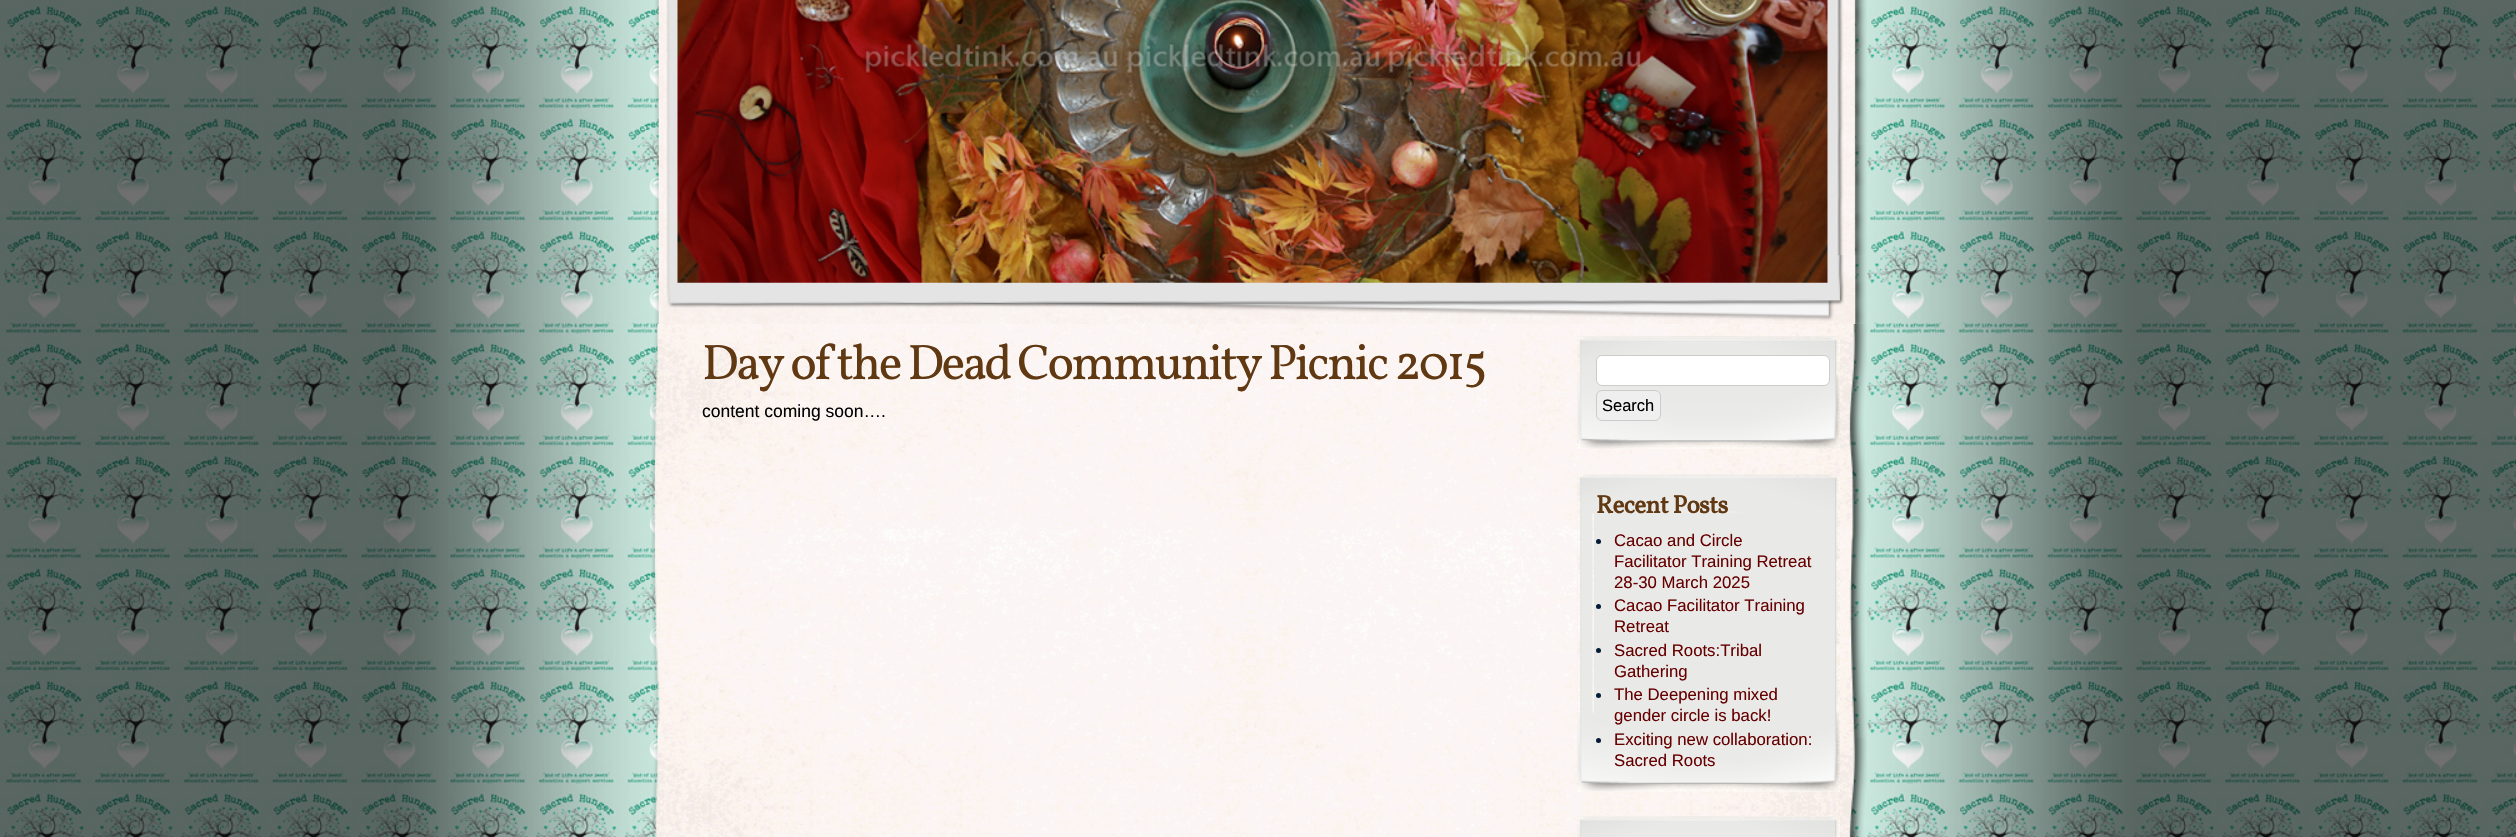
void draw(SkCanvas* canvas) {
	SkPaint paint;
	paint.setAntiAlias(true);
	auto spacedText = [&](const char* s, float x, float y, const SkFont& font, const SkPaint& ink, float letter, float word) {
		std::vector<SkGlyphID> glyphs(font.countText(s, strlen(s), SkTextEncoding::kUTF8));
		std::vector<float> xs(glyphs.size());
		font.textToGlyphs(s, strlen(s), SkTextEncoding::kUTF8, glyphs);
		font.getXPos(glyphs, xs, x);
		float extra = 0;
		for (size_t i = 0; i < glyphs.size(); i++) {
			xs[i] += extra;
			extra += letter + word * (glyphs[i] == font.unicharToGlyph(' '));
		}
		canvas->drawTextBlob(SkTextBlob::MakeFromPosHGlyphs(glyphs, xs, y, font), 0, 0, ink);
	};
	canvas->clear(0xffffffff);
	canvas->drawImageRect(SkImages::DeferredFromEncodedData(SkData::MakeFromFileName("img1.png")), SkRect::MakeXYWH(0, 0, 2516, 837), SkSamplingOptions());
	canvas->drawImageRect(SkImages::DeferredFromEncodedData(SkData::MakeFromFileName("img2.png")), SkRect::MakeXYWH(0, 0, 2516, 837), SkSamplingOptions());
	canvas->drawImageRect(SkImages::DeferredFromEncodedData(SkData::MakeFromFileName("img3.png")), SkRect::MakeXYWH(655, 0, 1212, 324), SkSamplingOptions());
	canvas->drawImageRect(SkImages::DeferredFromEncodedData(SkData::MakeFromFileName("img4.png")), SkRect::MakeXYWH(663, 255, 1193, 69), SkSamplingOptions());
	canvas->drawImageRect(SkImages::DeferredFromEncodedData(SkData::MakeFromFileName("img5.png")), SkRect::MakeXYWH(677, 0, 1151, 283), SkSamplingOptions());
	canvas->drawImageRect(SkImages::DeferredFromEncodedData(SkData::MakeFromFileName("img6.png")), SkRect::MakeXYWH(651, 324, 1216, 513), SkSamplingOptions());
	SkFont f1(fontMgr->matchFamilyStyle("Vollkorn", SkFontStyle::Normal()), 50);
	f1.setSubpixel(true);
	paint.setColor(0xff603913);
	spacedText("Day of the Dead Community Picnic 2015", 702, 379, f1, paint, -2.5, 0);
	SkFont f2(fontMgr->matchFamilyStyle("Liberation Sans", SkFontStyle::Normal()), 17.5);
	f2.setSubpixel(true);
	paint.setColor(0xff000000);
	canvas->drawString("content coming soon….", 702, 417, f2, paint);
	paint.setColor(0xffe9e9e8);
	canvas->drawRect(SkRect::MakeXYWH(1578, 336, 262, 1), paint);
	canvas->drawImageRect(SkImages::DeferredFromEncodedData(SkData::MakeFromFileName("img7.png")), SkRect::MakeXYWH(1577, 336, 263, 113), SkSamplingOptions());
	paint.setColor(0xffffffff);
	canvas->drawRoundRect(SkRect::MakeXYWH(1596.5, 355.5, 233, 30), 5.5, 5.5, paint);
	paint.setStroke(true);
	paint.setStrokeWidth(1);
	paint.setColor(0xffcccccc);
	canvas->drawRoundRect(SkRect::MakeXYWH(1596.5, 355.5, 233, 30), 5.5, 5.5, paint);
	paint.setStroke(false);
	paint.setColor(0xffefefef);
	canvas->drawRoundRect(SkRect::MakeXYWH(1596.5, 390.5, 64, 30), 5.5, 5.5, paint);
	paint.setStroke(true);
	paint.setColor(0xffcccccc);
	canvas->drawRoundRect(SkRect::MakeXYWH(1596.5, 390.5, 64, 30), 5.5, 5.5, paint);
	SkFont f3(fontMgr->matchFamilyStyle("Liberation Sans", SkFontStyle::Normal()), 16.5);
	f3.setSubpixel(true);
	paint.setStroke(false);
	paint.setColor(0xff000000);
	canvas->drawString("Search", 1602, 411, f3, paint);
	paint.setColor(0xffe9e9e8);
	canvas->drawRect(SkRect::MakeXYWH(1593, 512, 232, 201), paint);
	canvas->drawImageRect(SkImages::DeferredFromEncodedData(SkData::MakeFromFileName("img8.png")), SkRect::MakeXYWH(1577, 474, 263, 318), SkSamplingOptions());
	SkFont f4(fontMgr->matchFamilyStyle("Vollkorn", SkFontStyle::Bold()), 25);
	f4.setSubpixel(true);
	paint.setColor(0xff603913);
	spacedText("Recent Posts", 1596, 513, f4, paint, -0.6, 0);
	paint.setColor(0xff041a36);
	canvas->drawCircle(1598.5, 541.5, 2.5, paint);
	SkFont f5(fontMgr->matchFamilyStyle("Liberation Sans", SkFontStyle::Normal()), 16.75);
	f5.setSubpixel(true);
	paint.setColor(0xff660000);
	canvas->drawString("Cacao and Circle", 1614, 546, f5, paint);
	canvas->drawString("Facilitator Training Retreat", 1614, 567, f5, paint);
	canvas->drawString("28-30 March 2025", 1614, 588, f5, paint);
	paint.setColor(0xff041a36);
	canvas->drawCircle(1598.5, 606.5, 2.5, paint);
	paint.setColor(0xff660000);
	canvas->drawString("Cacao Facilitator Training", 1614, 611, f5, paint);
	canvas->drawString("Retreat", 1614, 632, f5, paint);
	paint.setColor(0xff041a36);
	canvas->drawCircle(1598.5, 650.5, 2.5, paint);
	paint.setColor(0xff660000);
	canvas->drawString("Sacred Roots:Tribal", 1614, 656, f5, paint);
	canvas->drawString("Gathering", 1614, 677, f5, paint);
	paint.setColor(0xff041a36);
	canvas->drawCircle(1598.5, 695.5, 2.5, paint);
	paint.setColor(0xff660000);
	canvas->drawString("The Deepening mixed", 1614, 700, f5, paint);
	canvas->drawString("gender circle is back!", 1614, 721, f5, paint);
	paint.setColor(0xff041a36);
	canvas->drawCircle(1598.5, 740.5, 2.5, paint);
	paint.setColor(0xff660000);
	canvas->drawString("Exciting new collaboration:", 1614, 745, f5, paint);
	canvas->drawString("Sacred Roots", 1614, 766, f5, paint);
	paint.setColor(0xffe9e9e8);
	canvas->drawRect(SkRect::MakeXYWH(1578, 816, 262, 1), paint);
	canvas->drawImageRect(SkImages::DeferredFromEncodedData(SkData::MakeFromFileName("img9.png")), SkRect::MakeXYWH(1577, 816, 263, 21), SkSamplingOptions());
}
